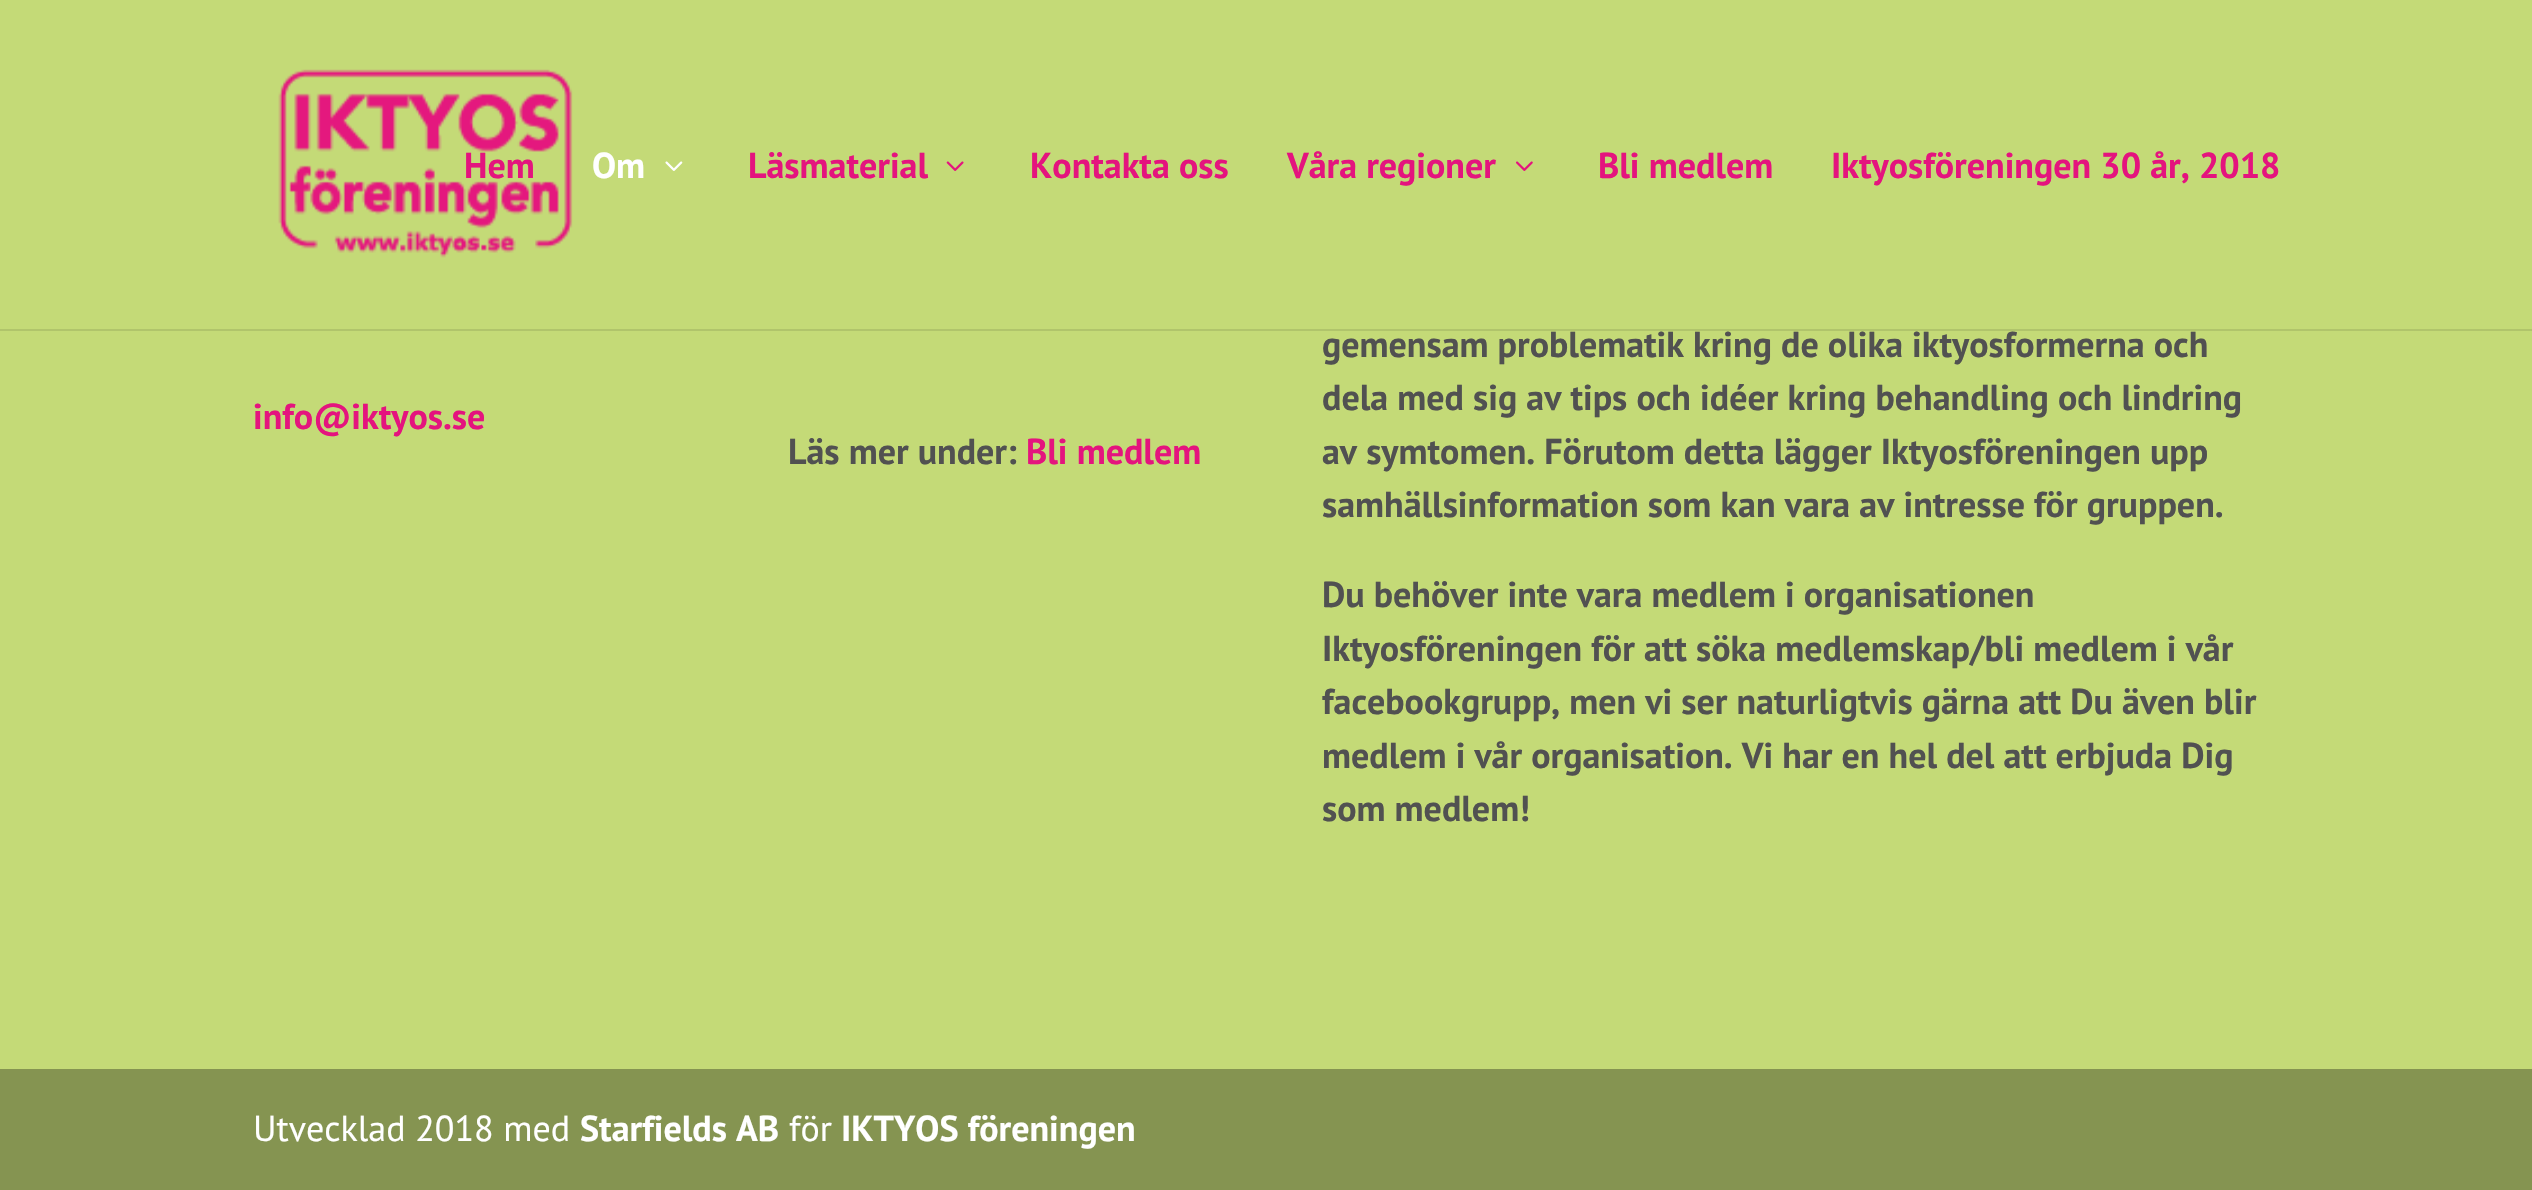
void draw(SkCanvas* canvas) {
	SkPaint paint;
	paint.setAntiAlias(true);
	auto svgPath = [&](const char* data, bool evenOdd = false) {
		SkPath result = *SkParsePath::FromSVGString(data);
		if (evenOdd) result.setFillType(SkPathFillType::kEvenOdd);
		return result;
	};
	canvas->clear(0xffc4da77);
	paint.setColor(0x1a000000);
	canvas->drawPath(svgPath("M0 328V331H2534V2V328Z"), paint);
	paint.setColor(0xffc4da77);
	canvas->drawRect(SkRect::MakeXYWH(0, 328, 2532, 1), paint);
	canvas->drawImageRect(SkImages::DeferredFromEncodedData(SkData::MakeFromFileName("img1.png")), SkRect::MakeXYWH(278, 69, 295, 189), SkSamplingOptions());
	SkFont f1(fontMgr->matchFamilyStyle("PT Sans", SkFontStyle::Bold()), 36);
	f1.setSubpixel(true);
	paint.setColor(0xffe4147e);
	canvas->drawString("Hem", 464, 178, f1, paint);
	paint.setColor(0xffffffff);
	canvas->drawString("Om", 592, 178, f1, paint);
	canvas->drawImageRect(SkImages::DeferredFromEncodedData(SkData::MakeFromFileName("img2.png")), SkRect::MakeXYWH(665, 161, 18, 10), SkSamplingOptions());
	paint.setColor(0xffe4147e);
	canvas->drawString("Läsmaterial", 748, 178, f1, paint);
	canvas->drawImageRect(SkImages::DeferredFromEncodedData(SkData::MakeFromFileName("img3.png")), SkRect::MakeXYWH(946, 161, 18, 10), SkSamplingOptions());
	canvas->drawString("Kontakta oss", 1030, 178, f1, paint);
	canvas->drawString("Våra regioner", 1287, 178, f1, paint);
	canvas->drawImageRect(SkImages::DeferredFromEncodedData(SkData::MakeFromFileName("img4.png")), SkRect::MakeXYWH(1516, 161, 17, 10), SkSamplingOptions());
	canvas->drawString("Bli medlem", 1598, 178, f1, paint);
	canvas->drawString("Iktyosföreningen 30 år, 2018", 1831, 178, f1, paint);
	canvas->drawString("info@iktyos.se", 253, 429, f1, paint);
	paint.setColor(0xff515151);
	canvas->drawString("gemensam problematik kring de olika iktyosformerna och", 1322, 357, f1, paint);
	canvas->drawString("dela med sig av tips och idéer kring behandling och lindring", 1322, 410, f1, paint);
	canvas->drawString("av symtomen. Förutom detta lägger Iktyosföreningen upp", 1322, 464, f1, paint);
	canvas->drawString("samhällsinformation som kan vara av intresse för gruppen.", 1322, 517, f1, paint);
	canvas->drawString("Du behöver inte vara medlem i organisationen", 1322, 607, f1, paint);
	canvas->drawString("Iktyosföreningen för att söka medlemskap/bli medlem i vår", 1322, 661, f1, paint);
	canvas->drawString("facebookgrupp, men vi ser naturligtvis gärna att Du även blir", 1322, 714, f1, paint);
	canvas->drawString("medlem i vår organisation. Vi har en hel del att erbjuda Dig", 1322, 768, f1, paint);
	canvas->drawString("som medlem!", 1322, 821, f1, paint);
	canvas->drawString("Läs mer under:", 788, 464, f1, paint);
	paint.setColor(0xffe4147e);
	canvas->drawString("Bli medlem", 1026, 464, f1, paint);
	paint.setColor(0xff859451);
	canvas->drawRect(SkRect::MakeXYWH(0, 1069, 2532, 121), paint);
	SkFont f2(fontMgr->matchFamilyStyle("PT Sans", SkFontStyle::Normal()), 36);
	f2.setSubpixel(true);
	paint.setColor(0xffffffff);
	canvas->drawString("Utvecklad 2018 med", 253, 1141, f2, paint);
	canvas->drawString("Starfields AB", 580, 1141, f1, paint);
	canvas->drawString("för", 789, 1141, f2, paint);
	canvas->drawString("IKTYOS föreningen", 841, 1141, f1, paint);
}
